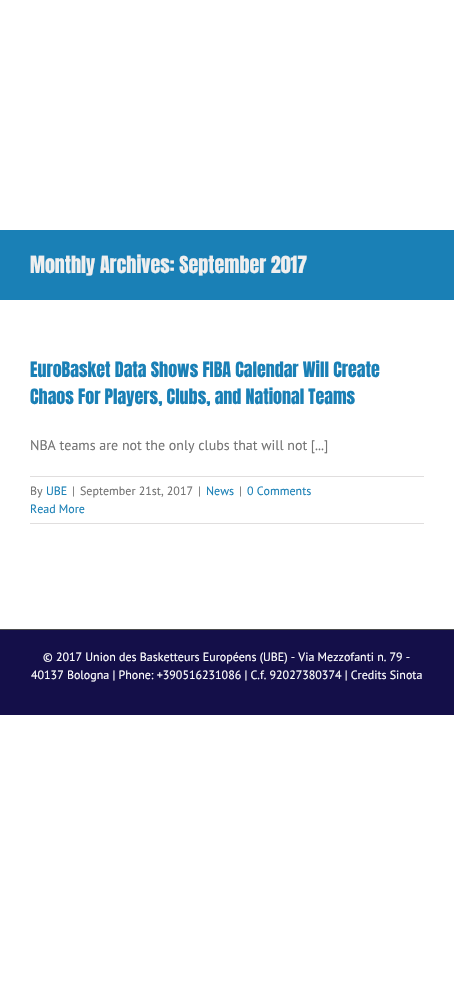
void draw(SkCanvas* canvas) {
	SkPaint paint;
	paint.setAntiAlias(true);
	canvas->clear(0xffffffff);
	paint.setColor(0xff1a80b6);
	canvas->drawRect(SkRect::MakeXYWH(0, 230, 454, 70), paint);
	SkFont f1(fontMgr->matchFamilyStyle("Anton", SkFontStyle::Normal()), 20);
	f1.setSubpixel(true);
	paint.setColor(0xffefefef);
	canvas->drawString("Monthly Archives: September 2017", 30, 273, f1, paint);
	SkFont f2(fontMgr->matchFamilyStyle("Anton", SkFontStyle::Normal()), 18);
	f2.setSubpixel(true);
	paint.setColor(0xff1a80b6);
	canvas->drawString("EuroBasket Data Shows FIBA Calendar Will Create", 30, 377, f2, paint);
	canvas->drawString("Chaos For Players, Clubs, and National Teams", 30, 404, f2, paint);
	SkFont f3(fontMgr->matchFamilyStyle("PT Sans", SkFontStyle::Normal()), 14);
	f3.setSubpixel(true);
	paint.setColor(0xff747474);
	canvas->drawString("NBA teams are not the only clubs that will not [...]", 30, 450, f3, paint);
	paint.setColor(0xffe0dede);
	canvas->drawRect(SkRect::MakeXYWH(30, 476, 394, 1), paint);
	canvas->drawRect(SkRect::MakeXYWH(30, 523, 394, 1), paint);
	SkFont f4(fontMgr->matchFamilyStyle("PT Sans", SkFontStyle::Normal()), 12);
	f4.setSubpixel(true);
	paint.setColor(0xff747474);
	canvas->drawString("By", 30, 495, f4, paint);
	paint.setColor(0xff1a80b6);
	canvas->drawString("UBE", 46, 495, f4, paint);
	paint.setColor(0xff747474);
	canvas->drawString("|", 72, 495, f4, paint);
	canvas->drawString("September 21st, 2017", 80, 495, f4, paint);
	canvas->drawString("|", 198, 495, f4, paint);
	paint.setColor(0xff1a80b6);
	canvas->drawString("News", 206, 495, f4, paint);
	paint.setColor(0xff747474);
	canvas->drawString("|", 239, 495, f4, paint);
	paint.setColor(0xff1a80b6);
	canvas->drawString("0 Comments", 247, 495, f4, paint);
	canvas->drawString("Read More", 30, 513, f4, paint);
	paint.setColor(0xff140f49);
	canvas->drawRect(SkRect::MakeXYWH(0, 630, 454, 85), paint);
	paint.setColor(0xff4b4c4d);
	canvas->drawRect(SkRect::MakeXYWH(0, 629, 454, 1), paint);
	paint.setColor(0xffffffff);
	canvas->drawString("© 2017 Union des Basketteurs Européens (UBE) - Via Mezzofanti n. 79 -", 43, 661, f4, paint);
	canvas->drawString("40137 Bologna | Phone: +390516231086 | C.f. 92027380374 | Credits Sinota", 31, 679, f4, paint);
}
